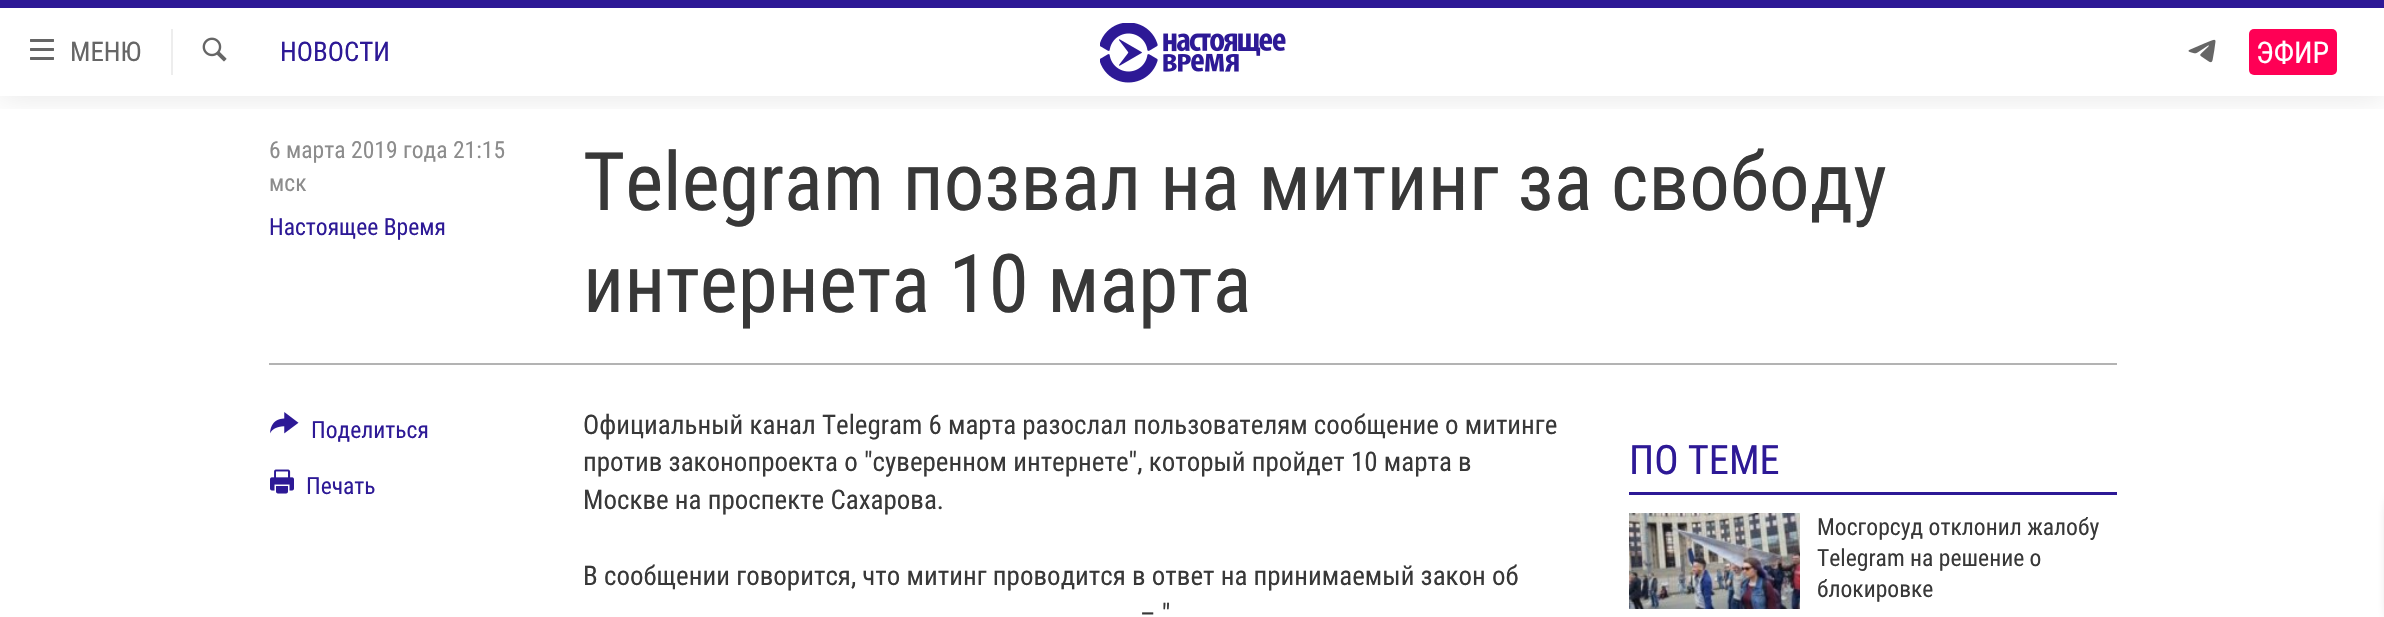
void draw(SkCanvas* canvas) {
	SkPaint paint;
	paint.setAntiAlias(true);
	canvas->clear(0xffffffff);
	canvas->save();
	canvas->clipRect(SkRect::MakeXYWH(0, 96, 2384, 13));
	paint.setColor(0x1a000000);
	paint.setMaskFilter(SkMaskFilter::MakeBlur(kNormal_SkBlurStyle, 15));
	canvas->drawRect(SkRect::MakeXYWH(0, 0, 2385, 96), paint);
	paint.setMaskFilter(nullptr);
	canvas->restore();
	paint.setColor(0xff2d1996);
	canvas->drawRect(SkRect::MakeXYWH(0, 0, 2384, 8), paint);
	canvas->drawImageRect(SkImages::DeferredFromEncodedData(SkData::MakeFromFileName("img1.png")), SkRect::MakeXYWH(30, 39, 24, 21), SkSamplingOptions());
	SkFont f1(fontMgr->matchFamilyStyle("Roboto Condensed", SkFontStyle::Normal()), 27);
	f1.setSubpixel(true);
	paint.setColor(0xff666666);
	canvas->drawString("МЕНЮ", 70, 61, f1, paint);
	paint.setColor(0xffededed);
	canvas->drawRect(SkRect::MakeXYWH(171, 29, 2, 46), paint);
	canvas->drawImageRect(SkImages::DeferredFromEncodedData(SkData::MakeFromFileName("img2.png")), SkRect::MakeXYWH(202, 37, 25, 25), SkSamplingOptions());
	paint.setColor(0xff2d1996);
	canvas->drawString("НОВОСТИ", 280, 61, f1, paint);
	canvas->drawImageRect(SkImages::DeferredFromEncodedData(SkData::MakeFromFileName("img3.png")), SkRect::MakeXYWH(1100, 23, 186, 60), SkSamplingOptions());
	canvas->drawImageRect(SkImages::DeferredFromEncodedData(SkData::MakeFromFileName("img4.png")), SkRect::MakeXYWH(2188, 39, 28, 24), SkSamplingOptions());
	paint.setColor(0xffff0055);
	canvas->drawRoundRect(SkRect::MakeXYWH(2249, 29, 88, 46), 5, 5, paint);
	SkFont f2(fontMgr->matchFamilyStyle("Roboto Condensed", SkFontStyle::Normal()), 30);
	f2.setSubpixel(true);
	paint.setColor(0xffffffff);
	canvas->drawString("ЭФИР", 2256, 63, f2, paint);
	SkFont f3(fontMgr->matchFamilyStyle("Roboto Condensed", SkFontStyle::Normal()), 23.6);
	f3.setSubpixel(true);
	paint.setColor(0xff8c8c8c);
	canvas->drawString("6 марта 2019 года 21:15", 269, 158, f3, paint);
	canvas->drawString("мск", 269, 191, f3, paint);
	paint.setColor(0xff2d1996);
	canvas->drawString("Настоящее Время", 269, 235, f3, paint);
	SkFont f4(fontMgr->matchFamilyStyle("Roboto Condensed", SkFontStyle::Normal()), 81);
	f4.setSubpixel(true);
	paint.setColor(0xff383838);
	canvas->drawString("Telegram позвал на митинг за свободу", 583, 210, f4, paint);
	canvas->drawString("интернета 10 марта", 583, 312, f4, paint);
	paint.setColor(0xffb3b3b3);
	canvas->drawRect(SkRect::MakeXYWH(269, 363, 1848, 2), paint);
	canvas->drawImageRect(SkImages::DeferredFromEncodedData(SkData::MakeFromFileName("img5.png")), SkRect::MakeXYWH(270, 412, 29, 22), SkSamplingOptions());
	paint.setColor(0xff2d1996);
	canvas->drawString("Поделиться", 311, 438, f3, paint);
	canvas->drawImageRect(SkImages::DeferredFromEncodedData(SkData::MakeFromFileName("img6.png")), SkRect::MakeXYWH(270, 469, 24, 25), SkSamplingOptions());
	canvas->drawString("Печать", 306, 494, f3, paint);
	paint.setColor(0xff383838);
	canvas->drawString("Официальный канал Telegram 6 марта разослал пользователям сообщение о митинге", 583, 434, f1, paint);
	canvas->drawString("против законопроекта о \"суверенном интернете\", который пройдет 10 марта в", 583, 471, f1, paint);
	canvas->drawString("Москве на проспекте Сахарова.", 583, 509, f1, paint);
	canvas->drawString("В сообщении говорится, что митинг проводится в ответ на принимаемый закон об", 583, 585, f1, paint);
	canvas->drawString("– \"", 1140, 623, f1, paint);
	paint.setColor(0xff2d1996);
	canvas->drawRect(SkRect::MakeXYWH(1629, 492, 488, 3), paint);
	SkFont f5(fontMgr->matchFamilyStyle("Roboto Condensed", SkFontStyle::Normal()), 40.5);
	f5.setSubpixel(true);
	canvas->drawString("ПО ТЕМЕ", 1629, 474, f5, paint);
	canvas->drawImageRect(SkImages::DeferredFromEncodedData(SkData::MakeFromFileName("img7.png")), SkRect::MakeXYWH(1629, 513, 171, 96), SkSamplingOptions());
	paint.setColor(0xff383838);
	canvas->drawString("Мосгорсуд отклонил жалобу", 1817, 535, f3, paint);
	canvas->drawString("Telegram на решение о", 1817, 566, f3, paint);
	canvas->drawString("блокировке", 1817, 597, f3, paint);
	paint.setColor(0xd9000000);
	paint.setMaskFilter(SkMaskFilter::MakeBlur(kNormal_SkBlurStyle, 7.5));
	canvas->drawRoundRect(SkRect::MakeXYWH(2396, 501, 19, 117), 8, 8, paint);
	paint.setMaskFilter(nullptr);
}
